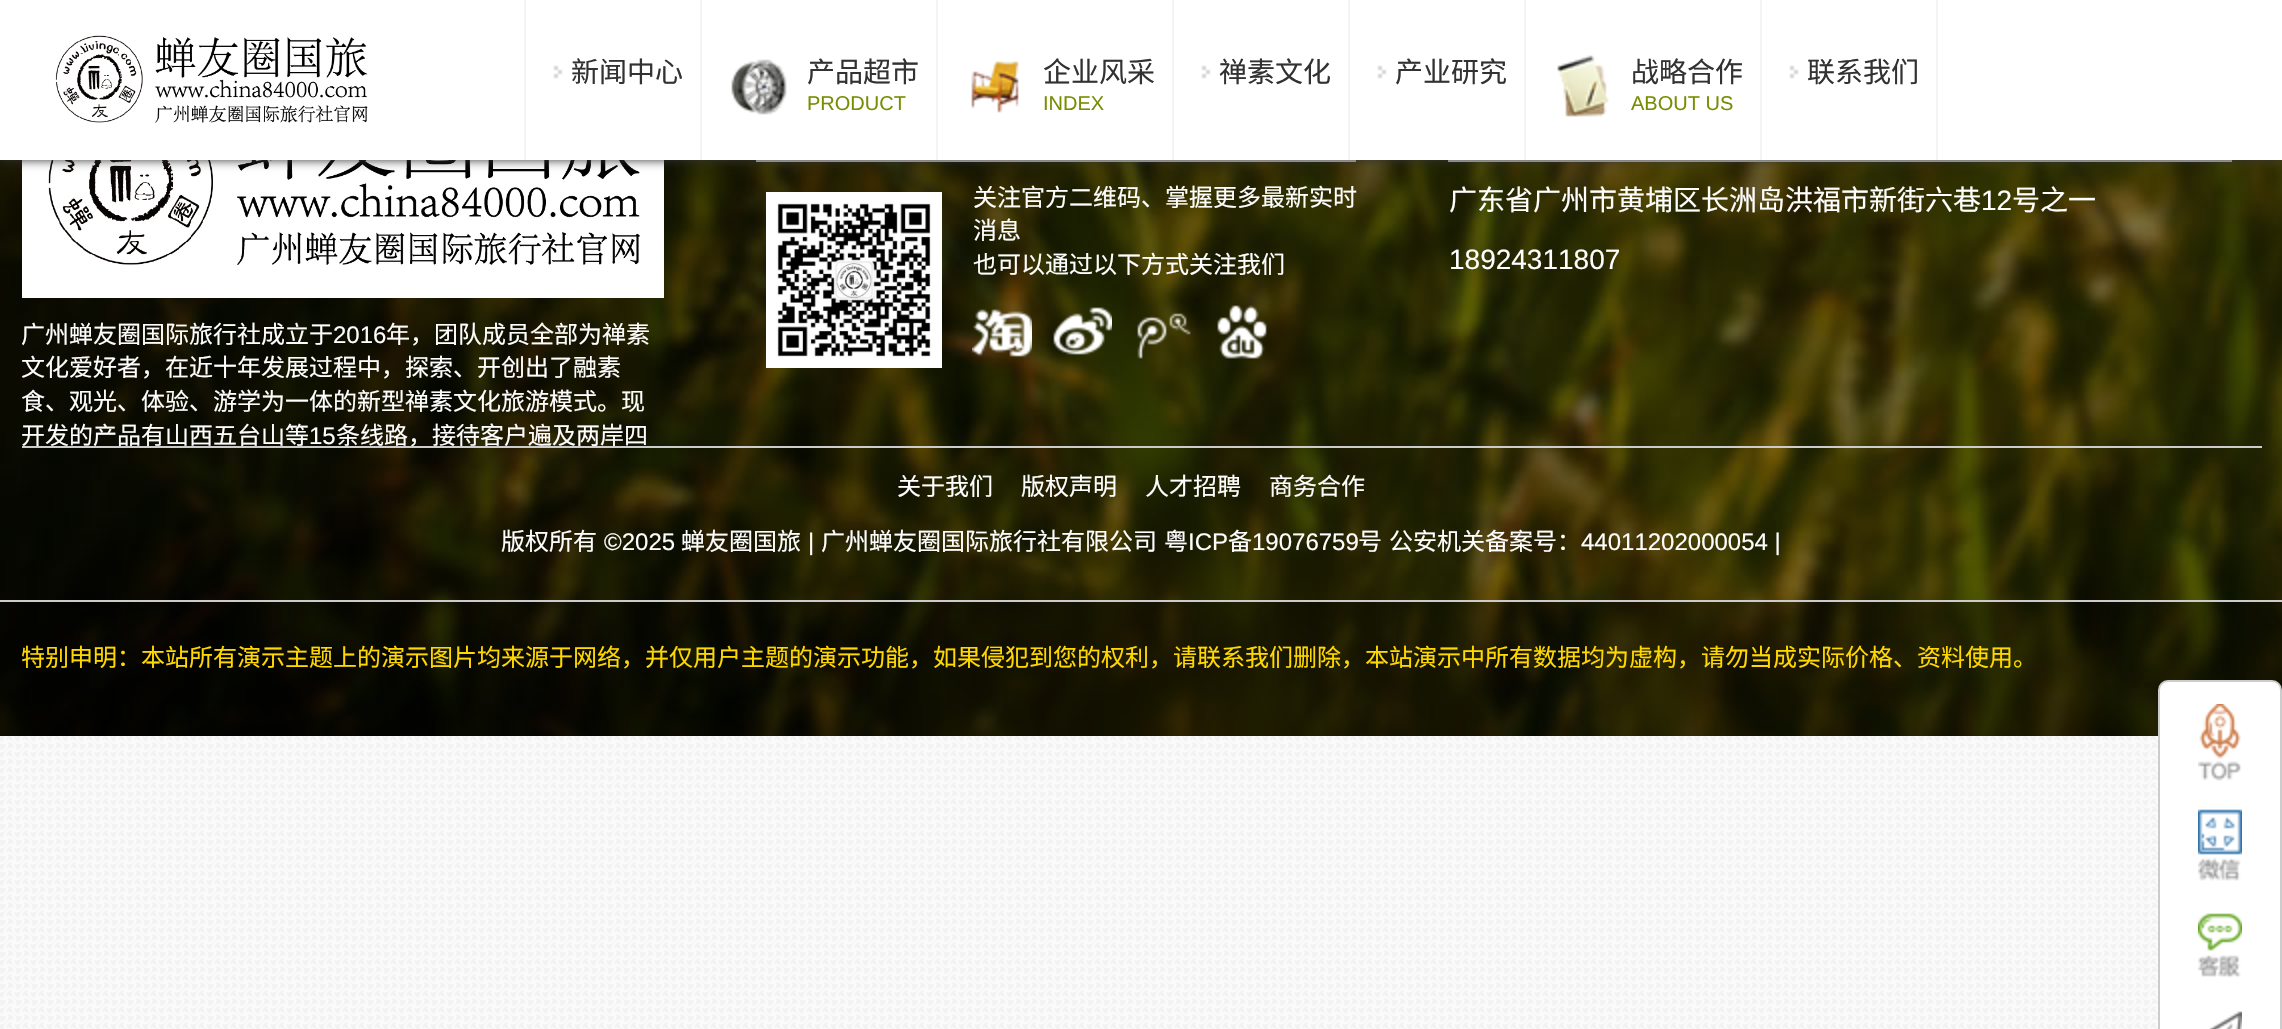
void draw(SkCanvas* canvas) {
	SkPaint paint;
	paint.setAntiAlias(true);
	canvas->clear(0xffffffff);
	canvas->drawImageRect(SkImages::DeferredFromEncodedData(SkData::MakeFromFileName("img1.png")), SkRect::MakeXYWH(0, 736, 2158, 293), SkSamplingOptions());
	canvas->drawImageRect(SkImages::DeferredFromEncodedData(SkData::MakeFromFileName("img7.png")), SkRect::MakeXYWH(0, 160, 2282, 576), SkSamplingOptions());
	paint.setColor(0xffcccccc);
	canvas->drawRect(SkRect::MakeXYWH(756, 160, 600, 2), paint);
	canvas->drawRect(SkRect::MakeXYWH(1448, 160, 784, 2), paint);
	canvas->drawImageRect(SkImages::DeferredFromEncodedData(SkData::MakeFromFileName("img13.png")), SkRect::MakeXYWH(22, 160, 642, 138), SkSamplingOptions());
	paint.setColor(0xff333333);
	paint.setMaskFilter(SkMaskFilter::MakeBlur(kNormal_SkBlurStyle, 5));
	canvas->drawRect(SkRect::MakeXYWH(0, 0, 2282, 160), paint);
	paint.setMaskFilter(nullptr);
	paint.setColor(0xffffffff);
	canvas->drawRect(SkRect::MakeXYWH(0, 0, 2282, 160), paint);
	canvas->drawImageRect(SkImages::DeferredFromEncodedData(SkData::MakeFromFileName("img2.png")), SkRect::MakeXYWH(55, 35, 313, 88), SkSamplingOptions());
	paint.setColor(0xfff4f4f4);
	canvas->drawRect(SkRect::MakeXYWH(524, 0, 2, 160), paint);
	canvas->drawRect(SkRect::MakeXYWH(700, 0, 2, 160), paint);
	canvas->drawImageRect(SkImages::DeferredFromEncodedData(SkData::MakeFromFileName("img3.png")), SkRect::MakeXYWH(553, 65, 10, 14), SkSamplingOptions());
	SkFont f1(fontMgr->matchFamilyStyle("Noto Sans CJK SC", SkFontStyle::Normal()), 28);
	f1.setSubpixel(true);
	paint.setColor(0xff323232);
	canvas->drawString("新闻中心", 571, 82, f1, paint);
	paint.setColor(0xfff4f4f4);
	canvas->drawRect(SkRect::MakeXYWH(936, 0, 2, 160), paint);
	canvas->drawImageRect(SkImages::DeferredFromEncodedData(SkData::MakeFromFileName("img4.png")), SkRect::MakeXYWH(731, 59, 56, 56), SkSamplingOptions());
	paint.setColor(0xff323232);
	canvas->drawString("产品超市", 807, 82, f1, paint);
	SkFont f2(fontMgr->matchFamilyStyle("Liberation Sans", SkFontStyle::Normal()), 20);
	f2.setSubpixel(true);
	paint.setColor(0xff768e02);
	canvas->drawString("PRODUCT", 807, 110, f2, paint);
	paint.setColor(0xfff4f4f4);
	canvas->drawRect(SkRect::MakeXYWH(1172, 0, 2, 160), paint);
	canvas->drawImageRect(SkImages::DeferredFromEncodedData(SkData::MakeFromFileName("img5.png")), SkRect::MakeXYWH(971, 61, 48, 52), SkSamplingOptions());
	paint.setColor(0xff323232);
	canvas->drawString("企业风采", 1043, 82, f1, paint);
	paint.setColor(0xff768e02);
	canvas->drawString("INDEX", 1043, 110, f2, paint);
	paint.setColor(0xfff4f4f4);
	canvas->drawRect(SkRect::MakeXYWH(1348, 0, 2, 160), paint);
	canvas->drawImageRect(SkImages::DeferredFromEncodedData(SkData::MakeFromFileName("img3.png")), SkRect::MakeXYWH(1201, 65, 10, 14), SkSamplingOptions());
	paint.setColor(0xff323232);
	canvas->drawString("禅素文化", 1219, 82, f1, paint);
	paint.setColor(0xfff4f4f4);
	canvas->drawRect(SkRect::MakeXYWH(1524, 0, 2, 160), paint);
	canvas->drawImageRect(SkImages::DeferredFromEncodedData(SkData::MakeFromFileName("img3.png")), SkRect::MakeXYWH(1377, 65, 10, 14), SkSamplingOptions());
	paint.setColor(0xff323232);
	canvas->drawString("产业研究", 1395, 82, f1, paint);
	paint.setColor(0xfff4f4f4);
	canvas->drawRect(SkRect::MakeXYWH(1760, 0, 2, 160), paint);
	canvas->drawImageRect(SkImages::DeferredFromEncodedData(SkData::MakeFromFileName("img6.png")), SkRect::MakeXYWH(1557, 55, 52, 62), SkSamplingOptions());
	paint.setColor(0xff323232);
	canvas->drawString("战略合作", 1631, 82, f1, paint);
	paint.setColor(0xff768e02);
	canvas->drawString("ABOUT US", 1631, 110, f2, paint);
	paint.setColor(0xfff4f4f4);
	canvas->drawRect(SkRect::MakeXYWH(1936, 0, 2, 160), paint);
	canvas->drawImageRect(SkImages::DeferredFromEncodedData(SkData::MakeFromFileName("img3.png")), SkRect::MakeXYWH(1789, 65, 10, 14), SkSamplingOptions());
	paint.setColor(0xff323232);
	canvas->drawString("联系我们", 1807, 82, f1, paint);
	canvas->drawImageRect(SkImages::DeferredFromEncodedData(SkData::MakeFromFileName("img8.png")), SkRect::MakeXYWH(766, 192, 176, 176), SkSamplingOptions());
	SkFont f3(fontMgr->matchFamilyStyle("Noto Sans CJK SC", SkFontStyle::Normal()), 24);
	f3.setSubpixel(true);
	paint.setColor(0xffffffff);
	canvas->drawString("关注官方二维码、掌握更多最新实时", 973, 206, f3, paint);
	canvas->drawString("消息", 973, 239, f3, paint);
	canvas->drawString("也可以通过以下方式关注我们", 973, 273, f3, paint);
	canvas->drawImageRect(SkImages::DeferredFromEncodedData(SkData::MakeFromFileName("img9.png")), SkRect::MakeXYWH(972, 309, 60, 48), SkSamplingOptions());
	canvas->drawImageRect(SkImages::DeferredFromEncodedData(SkData::MakeFromFileName("img10.png")), SkRect::MakeXYWH(1053, 307, 59, 48), SkSamplingOptions());
	canvas->drawImageRect(SkImages::DeferredFromEncodedData(SkData::MakeFromFileName("img11.png")), SkRect::MakeXYWH(1137, 313, 54, 46), SkSamplingOptions());
	canvas->drawImageRect(SkImages::DeferredFromEncodedData(SkData::MakeFromFileName("img12.png")), SkRect::MakeXYWH(1217, 305, 50, 54), SkSamplingOptions());
	canvas->drawString("广东省广州市黄埔区长洲岛洪福市新街六巷", 1449, 210, f1, paint);
	SkFont f4(fontMgr->matchFamilyStyle("Liberation Sans", SkFontStyle::Normal()), 28);
	f4.setSubpixel(true);
	canvas->drawString("12", 1981, 210, f4, paint);
	canvas->drawString("号之一", 2012, 210, f1, paint);
	canvas->drawString("18924311807", 1449, 269, f4, paint);
	canvas->drawString("广州蝉友圈国际旅行社成立于", 21, 343, f3, paint);
	SkFont f5(fontMgr->matchFamilyStyle("Liberation Sans", SkFontStyle::Normal()), 24);
	f5.setSubpixel(true);
	canvas->drawString("2016", 333, 343, f5, paint);
	canvas->drawString("年，团队成员全部为禅素", 386, 343, f3, paint);
	canvas->drawString("文化爱好者，在近十年发展过程中，探索、开创出了融素", 21, 376, f3, paint);
	canvas->drawString("食、观光、体验、游学为一体的新型禅素文化旅游模式。现", 21, 410, f3, paint);
	canvas->drawString("开发的产品有山西五台山等", 21, 444, f3, paint);
	canvas->drawString("15", 309, 444, f5, paint);
	canvas->drawString("条线路，接待客户遍及两岸四", 336, 444, f3, paint);
	paint.setColor(0xffcccccc);
	canvas->drawRect(SkRect::MakeXYWH(22, 446, 2240, 2), paint);
	paint.setColor(0xffffffff);
	canvas->drawString("关于我们", 897, 495, f3, paint);
	canvas->drawString("版权声明", 1021, 495, f3, paint);
	canvas->drawString("人才招聘", 1145, 495, f3, paint);
	canvas->drawString("商务合作", 1269, 495, f3, paint);
	canvas->drawString("版权所有", 501, 550, f3, paint);
	canvas->drawString("©2025", 604, 550, f5, paint);
	canvas->drawString("蝉友圈国旅", 681, 550, f3, paint);
	canvas->drawString("|", 808, 550, f5, paint);
	canvas->drawString("广州蝉友圈国际旅行社有限公司", 821, 550, f3, paint);
	canvas->drawString("粤", 1164, 550, f3, paint);
	canvas->drawString("ICP", 1188, 550, f5, paint);
	canvas->drawString("备", 1228, 550, f3, paint);
	canvas->drawString("19076759", 1252, 550, f5, paint);
	canvas->drawString("号", 1358, 550, f3, paint);
	canvas->drawString("公安机关备案号：", 1389, 550, f3, paint);
	canvas->drawString("44011202000054 |", 1581, 550, f5, paint);
	paint.setColor(0x66000000);
	canvas->drawRect(SkRect::MakeXYWH(0, 602, 2282, 134), paint);
	paint.setColor(0xffcccccc);
	canvas->drawRect(SkRect::MakeXYWH(0, 600, 2282, 2), paint);
	paint.setColor(0xffffd800);
	canvas->drawString("特别申明：本站所有演示主题上的演示图片均来源于网络，并仅用户主题的演示功能，如果侵犯到您的权利，请联系我们删除，本站演示中所有数据均为虚构，请勿当成实际价格、资料使用。", 21, 666, f3, paint);
	paint.setColor(0xffffffff);
	canvas->drawRoundRect(SkRect::MakeXYWH(2159, 681, 122, 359), 9, 9, paint);
	paint.setStroke(true);
	paint.setStrokeWidth(2);
	paint.setColor(0xffcccccc);
	canvas->drawRoundRect(SkRect::MakeXYWH(2159, 681, 122, 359), 9, 9, paint);
	canvas->drawImageRect(SkImages::DeferredFromEncodedData(SkData::MakeFromFileName("img14.png")), SkRect::MakeXYWH(2198, 704, 43, 77), SkSamplingOptions());
	canvas->drawImageRect(SkImages::DeferredFromEncodedData(SkData::MakeFromFileName("img15.png")), SkRect::MakeXYWH(2198, 809, 44, 72), SkSamplingOptions());
	canvas->drawImageRect(SkImages::DeferredFromEncodedData(SkData::MakeFromFileName("img16.png")), SkRect::MakeXYWH(2198, 913, 44, 65), SkSamplingOptions());
	canvas->drawImageRect(SkImages::DeferredFromEncodedData(SkData::MakeFromFileName("img17.png")), SkRect::MakeXYWH(2209, 1011, 33, 18), SkSamplingOptions());
}
